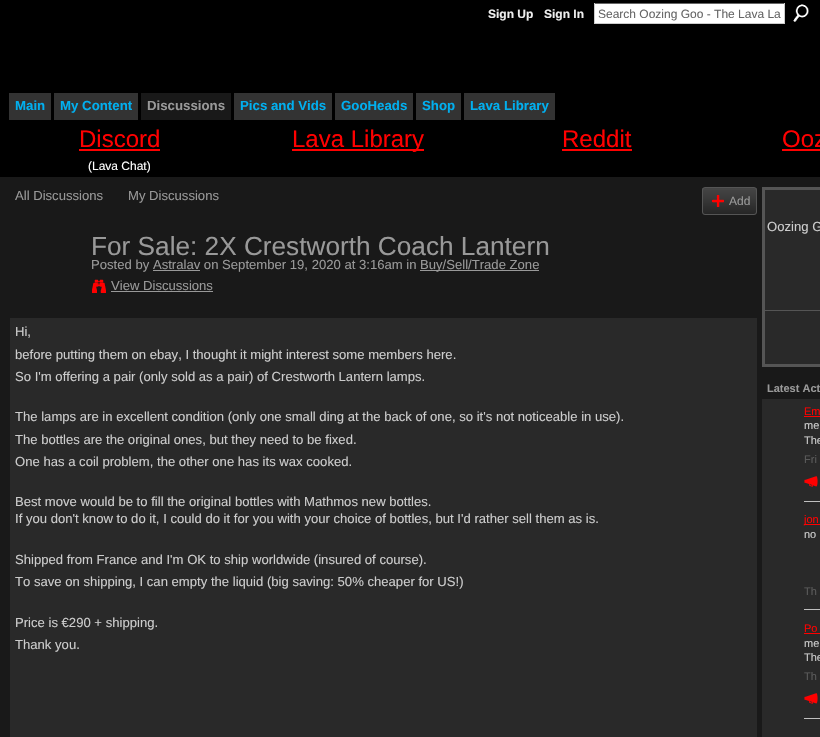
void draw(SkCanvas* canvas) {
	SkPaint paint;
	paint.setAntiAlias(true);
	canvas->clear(0xff000000);
	SkFont f1(fontMgr->matchFamilyStyle("Liberation Sans", SkFontStyle::Bold()), 12);
	f1.setSubpixel(true);
	paint.setColor(0xffeeeeee);
	canvas->drawString("Sign Up", 488, 18, f1, paint);
	canvas->drawString("Sign In", 544, 18, f1, paint);
	paint.setColor(0xffffffff);
	canvas->drawRect(SkRect::MakeXYWH(595, 4, 189, 19), paint);
	paint.setColor(0xff666666);
	canvas->drawRect(SkRect::MakeXYWH(594, 3, 191, 1), paint);
	paint.setColor(0xffcccccc);
	canvas->drawRect(SkRect::MakeXYWH(784, 3, 1, 21), paint);
	canvas->drawRect(SkRect::MakeXYWH(594, 23, 191, 1), paint);
	canvas->drawRect(SkRect::MakeXYWH(594, 3, 1, 21), paint);
	SkFont f2(fontMgr->matchFamilyStyle("Liberation Sans", SkFontStyle::Normal()), 12);
	f2.setSubpixel(true);
	paint.setColor(0xff666666);
	canvas->drawString("Search Oozing Goo - The Lava La", 598, 18, f2, paint);
	canvas->drawImageRect(SkImages::DeferredFromEncodedData(SkData::MakeFromFileName("img1.png")), SkRect::MakeXYWH(793, 4, 16, 18), SkSamplingOptions());
	paint.setColor(0xff333333);
	canvas->drawRect(SkRect::MakeXYWH(9, 93, 42, 27), paint);
	SkFont f3(fontMgr->matchFamilyStyle("Liberation Sans", SkFontStyle::Bold()), 13.25);
	f3.setSubpixel(true);
	paint.setColor(0xff01afef);
	canvas->drawString("Main", 15, 110, f3, paint);
	paint.setColor(0xff333333);
	canvas->drawRect(SkRect::MakeXYWH(54, 93, 84, 27), paint);
	paint.setColor(0xff01afef);
	canvas->drawString("My Content", 60, 110, f3, paint);
	paint.setColor(0xff191919);
	canvas->drawRect(SkRect::MakeXYWH(141, 93, 90, 27), paint);
	paint.setColor(0xff999999);
	canvas->drawString("Discussions", 147, 110, f3, paint);
	paint.setColor(0xff333333);
	canvas->drawRect(SkRect::MakeXYWH(234, 93, 98, 27), paint);
	paint.setColor(0xff01afef);
	canvas->drawString("Pics and Vids", 240, 110, f3, paint);
	paint.setColor(0xff333333);
	canvas->drawRect(SkRect::MakeXYWH(335, 93, 78, 27), paint);
	paint.setColor(0xff01afef);
	canvas->drawString("GooHeads", 341, 110, f3, paint);
	paint.setColor(0xff333333);
	canvas->drawRect(SkRect::MakeXYWH(416, 93, 45, 27), paint);
	paint.setColor(0xff01afef);
	canvas->drawString("Shop", 422, 110, f3, paint);
	paint.setColor(0xff333333);
	canvas->drawRect(SkRect::MakeXYWH(464, 93, 91, 27), paint);
	paint.setColor(0xff01afef);
	canvas->drawString("Lava Library", 470, 110, f3, paint);
	SkFont f4(fontMgr->matchFamilyStyle("Liberation Sans", SkFontStyle::Normal()), 24);
	f4.setSubpixel(true);
	paint.setColor(0xffff0000);
	canvas->drawString("Discord", 79, 147, f4, paint);
	canvas->drawRect(SkRect::MakeXYWH(79, 149, 81, 2), paint);
	paint.setColor(0xffffffff);
	canvas->drawString("(Lava Chat)", 88, 170, f2, paint);
	paint.setColor(0xffff0000);
	canvas->drawRect(SkRect::MakeXYWH(292, 149, 132, 2), paint);
	canvas->drawString("Lava Library", 292, 147, f4, paint);
	canvas->drawString("Reddit", 562, 147, f4, paint);
	canvas->drawRect(SkRect::MakeXYWH(562, 149, 70, 2), paint);
	canvas->drawString("Ooz", 782, 147, f4, paint);
	canvas->drawRect(SkRect::MakeXYWH(782, 149, 38, 2), paint);
	paint.setColor(0xff191919);
	canvas->drawRect(SkRect::MakeXYWH(0, 177, 820, 560), paint);
	SkFont f5(fontMgr->matchFamilyStyle("Liberation Sans", SkFontStyle::Normal()), 13.1);
	f5.setSubpixel(true);
	paint.setColor(0xff999999);
	canvas->drawString("All Discussions", 15, 200, f5, paint);
	canvas->drawString("My Discussions", 128, 200, f5, paint);
	canvas->drawImageRect(SkImages::DeferredFromEncodedData(SkData::MakeFromFileName("img2.png")), SkRect::MakeXYWH(702, 188, 55, 27), SkSamplingOptions());
	paint.setStroke(true);
	paint.setStrokeWidth(1);
	paint.setColor(0xff555555);
	canvas->drawRoundRect(SkRect::MakeXYWH(702.5, 187.5, 54, 27), 2.5, 2.5, paint);
	canvas->drawImageRect(SkImages::DeferredFromEncodedData(SkData::MakeFromFileName("img3.png")), SkRect::MakeXYWH(712, 195, 12, 12), SkSamplingOptions());
	paint.setStroke(false);
	paint.setColor(0xff999999);
	canvas->drawString("Add", 729, 205, f2, paint);
	SkFont f6(fontMgr->matchFamilyStyle("Liberation Sans", SkFontStyle::Normal()), 26.2);
	f6.setSubpixel(true);
	canvas->drawString("For Sale: 2X Crestworth Coach Lantern", 91, 255, f6, paint);
	canvas->drawString("Posted by Astralav on September 19, 2020 at 3:16am in", 91, 269, f5, paint);
	canvas->drawRect(SkRect::MakeXYWH(420, 270, 119, 1), paint);
	canvas->drawString("Buy/Sell/Trade Zone", 420, 269, f5, paint);
	canvas->drawRect(SkRect::MakeXYWH(153, 270, 47, 1), paint);
	canvas->drawImageRect(SkImages::DeferredFromEncodedData(SkData::MakeFromFileName("img4.png")), SkRect::MakeXYWH(92, 279, 14, 14), SkSamplingOptions());
	canvas->drawString("View Discussions", 111, 290, f5, paint);
	canvas->drawRect(SkRect::MakeXYWH(111, 291, 102, 1), paint);
	paint.setColor(0xff292929);
	canvas->drawRect(SkRect::MakeXYWH(10, 318, 747, 419), paint);
	paint.setColor(0xffcccccc);
	canvas->drawString("Hi,", 15, 336, f5, paint);
	canvas->drawString("before putting them on ebay, I thought it might interest some members here.", 15, 359, f5, paint);
	canvas->drawString("So I'm offering a pair (only sold as a pair) of Crestworth Lantern lamps.", 15, 381, f5, paint);
	canvas->drawString("The lamps are in excellent condition (only one small ding at the back of one, so it's not noticeable in use).", 15, 421, f5, paint);
	canvas->drawString("The bottles are the original ones, but they need to be fixed.", 15, 444, f5, paint);
	canvas->drawString("One has a coil problem, the other one has its wax cooked.", 15, 466, f5, paint);
	canvas->drawString("Best move would be to fill the original bottles with Mathmos new bottles.", 15, 506, f5, paint);
	canvas->drawString("If you don't know to do it, I could do it for you with your choice of bottles, but I'd rather sell them as is.", 15, 523, f5, paint);
	canvas->drawString("Shipped from France and I'm OK to ship worldwide (insured of course).", 15, 564, f5, paint);
	canvas->drawString("To save on shipping, I can empty the liquid (big saving: 50% cheaper for US!)", 15, 586, f5, paint);
	canvas->drawString("Price is €290 + shipping.", 15, 627, f5, paint);
	canvas->drawString("Thank you.", 15, 649, f5, paint);
	paint.setColor(0xff292929);
	canvas->drawRect(SkRect::MakeXYWH(763.5, 188.5, 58, 177), paint);
	paint.setStroke(true);
	paint.setStrokeWidth(3);
	paint.setColor(0xff555555);
	canvas->drawRect(SkRect::MakeXYWH(763.5, 188.5, 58, 177), paint);
	paint.setStroke(false);
	paint.setColor(0xffcccccc);
	canvas->drawString("Oozing G", 767, 231, f5, paint);
	paint.setColor(0xff555555);
	canvas->drawRect(SkRect::MakeXYWH(765, 310, 55, 1), paint);
	SkFont f7(fontMgr->matchFamilyStyle("Liberation Sans", SkFontStyle::Bold()), 11);
	f7.setSubpixel(true);
	paint.setColor(0xff999999);
	canvas->drawString("Latest Act", 767, 392, f7, paint);
	paint.setColor(0xff292929);
	canvas->drawRect(SkRect::MakeXYWH(762, 399, 58, 338), paint);
	paint.setColor(0xffc0c0c0);
	canvas->drawRect(SkRect::MakeXYWH(804, 501, 16, 1), paint);
	SkFont f8(fontMgr->matchFamilyStyle("Liberation Sans", SkFontStyle::Normal()), 11);
	f8.setSubpixel(true);
	paint.setColor(0xffff0000);
	canvas->drawString("Em", 804, 415, f8, paint);
	canvas->drawRect(SkRect::MakeXYWH(804, 416, 16, 1), paint);
	paint.setColor(0xffcccccc);
	canvas->drawString("me", 804, 429, f8, paint);
	canvas->drawString("The", 804, 444, f8, paint);
	paint.setColor(0xff5a5a5a);
	canvas->drawString("Fri", 804, 463, f8, paint);
	canvas->drawImageRect(SkImages::DeferredFromEncodedData(SkData::MakeFromFileName("img5.png")), SkRect::MakeXYWH(804, 476, 14, 11), SkSamplingOptions());
	paint.setColor(0xffc0c0c0);
	canvas->drawRect(SkRect::MakeXYWH(804, 609, 16, 1), paint);
	paint.setColor(0xffff0000);
	canvas->drawRect(SkRect::MakeXYWH(804, 524, 16, 1), paint);
	canvas->drawString("jon", 804, 523, f8, paint);
	paint.setColor(0xffcccccc);
	canvas->drawString("no", 804, 538, f8, paint);
	paint.setColor(0xff5a5a5a);
	canvas->drawString("Th", 804, 595, f8, paint);
	paint.setColor(0xffc0c0c0);
	canvas->drawRect(SkRect::MakeXYWH(804, 718, 16, 1), paint);
	paint.setColor(0xffff0000);
	canvas->drawString("Po", 804, 632, f8, paint);
	canvas->drawRect(SkRect::MakeXYWH(804, 633, 16, 1), paint);
	paint.setColor(0xffcccccc);
	canvas->drawString("me", 804, 647, f8, paint);
	canvas->drawString("The", 804, 661, f8, paint);
	paint.setColor(0xff5a5a5a);
	canvas->drawString("Th", 804, 680, f8, paint);
	canvas->drawImageRect(SkImages::DeferredFromEncodedData(SkData::MakeFromFileName("img5.png")), SkRect::MakeXYWH(804, 693, 14, 11), SkSamplingOptions());
}
